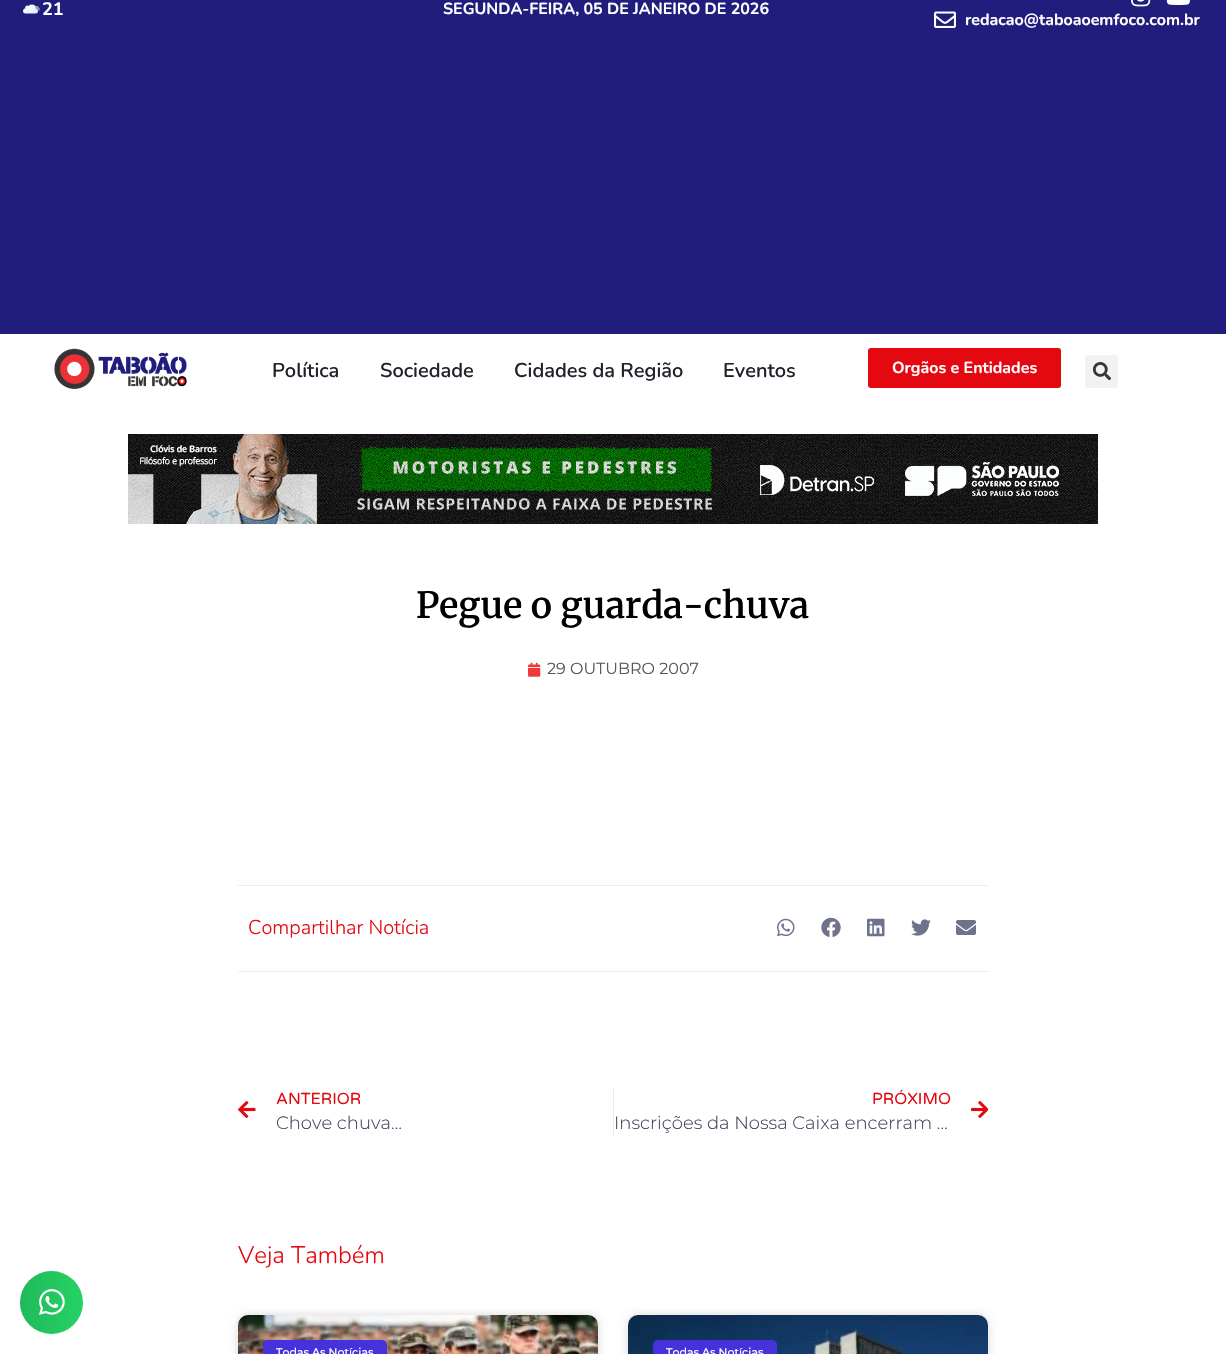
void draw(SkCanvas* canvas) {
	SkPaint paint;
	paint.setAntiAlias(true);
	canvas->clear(0xffffffff);
	paint.setColor(0xff211d7d);
	canvas->drawRect(SkRect::MakeXYWH(0, 0, 1226, 334), paint);
	canvas->drawImageRect(SkImages::DeferredFromEncodedData(SkData::MakeFromFileName("img1.png")), SkRect::MakeXYWH(23, 4, 17, 10), SkSamplingOptions());
	SkFont f1(fontMgr->matchFamilyStyle("Nunito", SkFontStyle::Bold()), 18);
	f1.setSubpixel(true);
	paint.setColor(0xffffffff);
	canvas->drawString("21", 42, 15, f1, paint);
	SkFont f2(fontMgr->matchFamilyStyle("Nunito", SkFontStyle::Bold()), 16);
	f2.setSubpixel(true);
	canvas->drawString("SEGUNDA-FEIRA, 05 DE JANEIRO DE 2026", 443, 14, f2, paint);
	canvas->drawImageRect(SkImages::DeferredFromEncodedData(SkData::MakeFromFileName("img2.png")), SkRect::MakeXYWH(1131, 0, 20, 7), SkSamplingOptions());
	canvas->drawImageRect(SkImages::DeferredFromEncodedData(SkData::MakeFromFileName("img3.png")), SkRect::MakeXYWH(1166, 0, 24, 5), SkSamplingOptions());
	canvas->drawImageRect(SkImages::DeferredFromEncodedData(SkData::MakeFromFileName("img4.png")), SkRect::MakeXYWH(934, 11, 22, 17), SkSamplingOptions());
	canvas->drawString("redacao@taboaoemfoco.com.br", 965, 25, f2, paint);
	canvas->drawImageRect(SkImages::DeferredFromEncodedData(SkData::MakeFromFileName("img5.png")), SkRect::MakeXYWH(54, 348, 133, 41), SkSamplingOptions());
	SkFont f3(fontMgr->matchFamilyStyle("Nunito", SkFontStyle(600, SkFontStyle::kNormal_Width, SkFontStyle::kUpright_Slant)), 20);
	f3.setSubpixel(true);
	paint.setColor(0xff20222a);
	canvas->drawString("Política", 272, 377, f3, paint);
	canvas->drawString("Sociedade", 380, 377, f3, paint);
	canvas->drawString("Cidades da Região", 514, 377, f3, paint);
	canvas->drawString("Eventos", 723, 377, f3, paint);
	paint.setColor(0xffe40810);
	canvas->drawRoundRect(SkRect::MakeXYWH(868, 348, 193, 40), 3, 3, paint);
	paint.setColor(0xffffffff);
	canvas->drawString("Orgãos e Entidades", 892, 373, f2, paint);
	paint.setColor(0xfff2f2f2);
	canvas->drawRoundRect(SkRect::MakeXYWH(1085, 355, 33, 33), 3, 3, paint);
	canvas->drawImageRect(SkImages::DeferredFromEncodedData(SkData::MakeFromFileName("img6.png")), SkRect::MakeXYWH(1092, 362, 19, 19), SkSamplingOptions());
	canvas->drawImageRect(SkImages::DeferredFromEncodedData(SkData::MakeFromFileName("img7.png")), SkRect::MakeXYWH(128, 434, 970, 90), SkSamplingOptions());
	SkFont f4(fontMgr->matchFamilyStyle("Merriweather", SkFontStyle(600, SkFontStyle::kNormal_Width, SkFontStyle::kUpright_Slant)), 36);
	f4.setSubpixel(true);
	paint.setColor(0xff000000);
	canvas->drawString("Pegue o guarda-chuva", 416, 618, f4, paint);
	canvas->drawImageRect(SkImages::DeferredFromEncodedData(SkData::MakeFromFileName("img8.png")), SkRect::MakeXYWH(528, 662, 13, 15), SkSamplingOptions());
	SkFont f5(fontMgr->matchFamilyStyle("Montserrat", SkFontStyle::Normal()), 16);
	f5.setSubpixel(true);
	paint.setColor(0xff54595f);
	canvas->drawString("29 OUTUBRO 2007", 547, 674, f5, paint);
	paint.setColor(0xffecedef);
	canvas->drawRect(SkRect::MakeXYWH(238, 885, 750, 1), paint);
	canvas->drawRect(SkRect::MakeXYWH(238, 971, 750, 1), paint);
	SkFont f6(fontMgr->matchFamilyStyle("Nunito", SkFontStyle(300, SkFontStyle::kNormal_Width, SkFontStyle::kUpright_Slant)), 20);
	f6.setSubpixel(true);
	paint.setColor(0xffe40810);
	canvas->drawString("Compartilhar Notícia", 248, 934, f6, paint);
	canvas->drawImageRect(SkImages::DeferredFromEncodedData(SkData::MakeFromFileName("img9.png")), SkRect::MakeXYWH(777, 918, 18, 19), SkSamplingOptions());
	canvas->drawImageRect(SkImages::DeferredFromEncodedData(SkData::MakeFromFileName("img10.png")), SkRect::MakeXYWH(821, 917, 20, 20), SkSamplingOptions());
	canvas->drawImageRect(SkImages::DeferredFromEncodedData(SkData::MakeFromFileName("img11.png")), SkRect::MakeXYWH(867, 918, 18, 19), SkSamplingOptions());
	canvas->drawImageRect(SkImages::DeferredFromEncodedData(SkData::MakeFromFileName("img12.png")), SkRect::MakeXYWH(911, 919, 20, 17), SkSamplingOptions());
	canvas->drawImageRect(SkImages::DeferredFromEncodedData(SkData::MakeFromFileName("img13.png")), SkRect::MakeXYWH(956, 920, 20, 15), SkSamplingOptions());
	canvas->drawImageRect(SkImages::DeferredFromEncodedData(SkData::MakeFromFileName("img14.png")), SkRect::MakeXYWH(238, 1101, 18, 17), SkSamplingOptions());
	SkFont f7(fontMgr->matchFamilyStyle("Varela Round", SkFontStyle::Normal()), 16);
	f7.setSubpixel(true);
	canvas->drawString("ANTERIOR", 276, 1104, f7, paint);
	SkFont f8(fontMgr->matchFamilyStyle("Montserrat", SkFontStyle(300, SkFontStyle::kNormal_Width, SkFontStyle::kUpright_Slant)), 18);
	f8.setSubpixel(true);
	paint.setColor(0xff3d4459);
	canvas->drawString("Chove chuva…", 276, 1129, f8, paint);
	paint.setColor(0xffecedef);
	canvas->drawRect(SkRect::MakeXYWH(613, 1087, 1, 49), paint);
	paint.setColor(0xffe40810);
	canvas->drawString("PRÓXIMO", 872, 1104, f7, paint);
	paint.setColor(0xff3d4459);
	canvas->drawString("Inscrições da Nossa Caixa encerram …", 614, 1129, f8, paint);
	canvas->drawImageRect(SkImages::DeferredFromEncodedData(SkData::MakeFromFileName("img15.png")), SkRect::MakeXYWH(971, 1101, 17, 17), SkSamplingOptions());
	SkFont f9(fontMgr->matchFamilyStyle("Nunito", SkFontStyle(300, SkFontStyle::kNormal_Width, SkFontStyle::kUpright_Slant)), 24);
	f9.setSubpixel(true);
	paint.setColor(0xffe40810);
	canvas->drawString("Veja Também", 238, 1263, f9, paint);
	paint.setColor(0xff25d366);
	canvas->drawCircle(51.5, 1302.5, 31.5, paint);
	{
		const SkColor colors[] = {0x1f000000, 0x00000000};
		const float stops[] = {0, 1};
		const SkPoint ends[] = {{20, 1303}, {83, 1303}};
		paint.setShader(SkGradientShader::MakeLinear(ends, colors, stops, 2, SkTileMode::kClamp));
		paint.setAlpha(255);
	}
	canvas->drawCircle(51.5, 1302.5, 31.5, paint);
	canvas->drawImageRect(SkImages::DeferredFromEncodedData(SkData::MakeFromFileName("img16.png")), SkRect::MakeXYWH(39, 1289, 26, 26), SkSamplingOptions());
	paint.setShader(nullptr);
	paint.setColor(0x26000000);
	paint.setMaskFilter(SkMaskFilter::MakeBlur(kNormal_SkBlurStyle, 5));
	canvas->drawRoundRect(SkRect::MakeXYWH(238, 1315, 360, 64), 10, 10, paint);
	paint.setMaskFilter(nullptr);
	paint.setColor(0xffffffff);
	canvas->drawRoundRect(SkRect::MakeXYWH(238, 1315, 360, 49), 10, 10, paint);
	canvas->drawImageRect(SkImages::DeferredFromEncodedData(SkData::MakeFromFileName("img17.png")), SkRect::MakeXYWH(238, 1315, 360, 39), SkSamplingOptions());
	paint.setColor(0xff4632da);
	canvas->drawRoundRect(SkRect::MakeXYWH(263, 1340, 124, 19), 5, 5, paint);
	SkFont f10(fontMgr->matchFamilyStyle("Montserrat", SkFontStyle(500, SkFontStyle::kNormal_Width, SkFontStyle::kUpright_Slant)), 11);
	f10.setSubpixel(true);
	paint.setColor(0xffffffff);
	canvas->drawString("Todas As Notícias", 276, 1356, f10, paint);
	paint.setColor(0x26000000);
	paint.setMaskFilter(SkMaskFilter::MakeBlur(kNormal_SkBlurStyle, 5));
	canvas->drawRoundRect(SkRect::MakeXYWH(628, 1315, 360, 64), 10, 10, paint);
	paint.setMaskFilter(nullptr);
	paint.setColor(0xffffffff);
	canvas->drawRoundRect(SkRect::MakeXYWH(628, 1315, 360, 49), 10, 10, paint);
	canvas->drawImageRect(SkImages::DeferredFromEncodedData(SkData::MakeFromFileName("img18.png")), SkRect::MakeXYWH(628, 1315, 360, 39), SkSamplingOptions());
	paint.setColor(0xff4632da);
	canvas->drawRoundRect(SkRect::MakeXYWH(653, 1340, 124, 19), 5, 5, paint);
	paint.setColor(0xffffffff);
	canvas->drawString("Todas As Notícias", 666, 1356, f10, paint);
}
